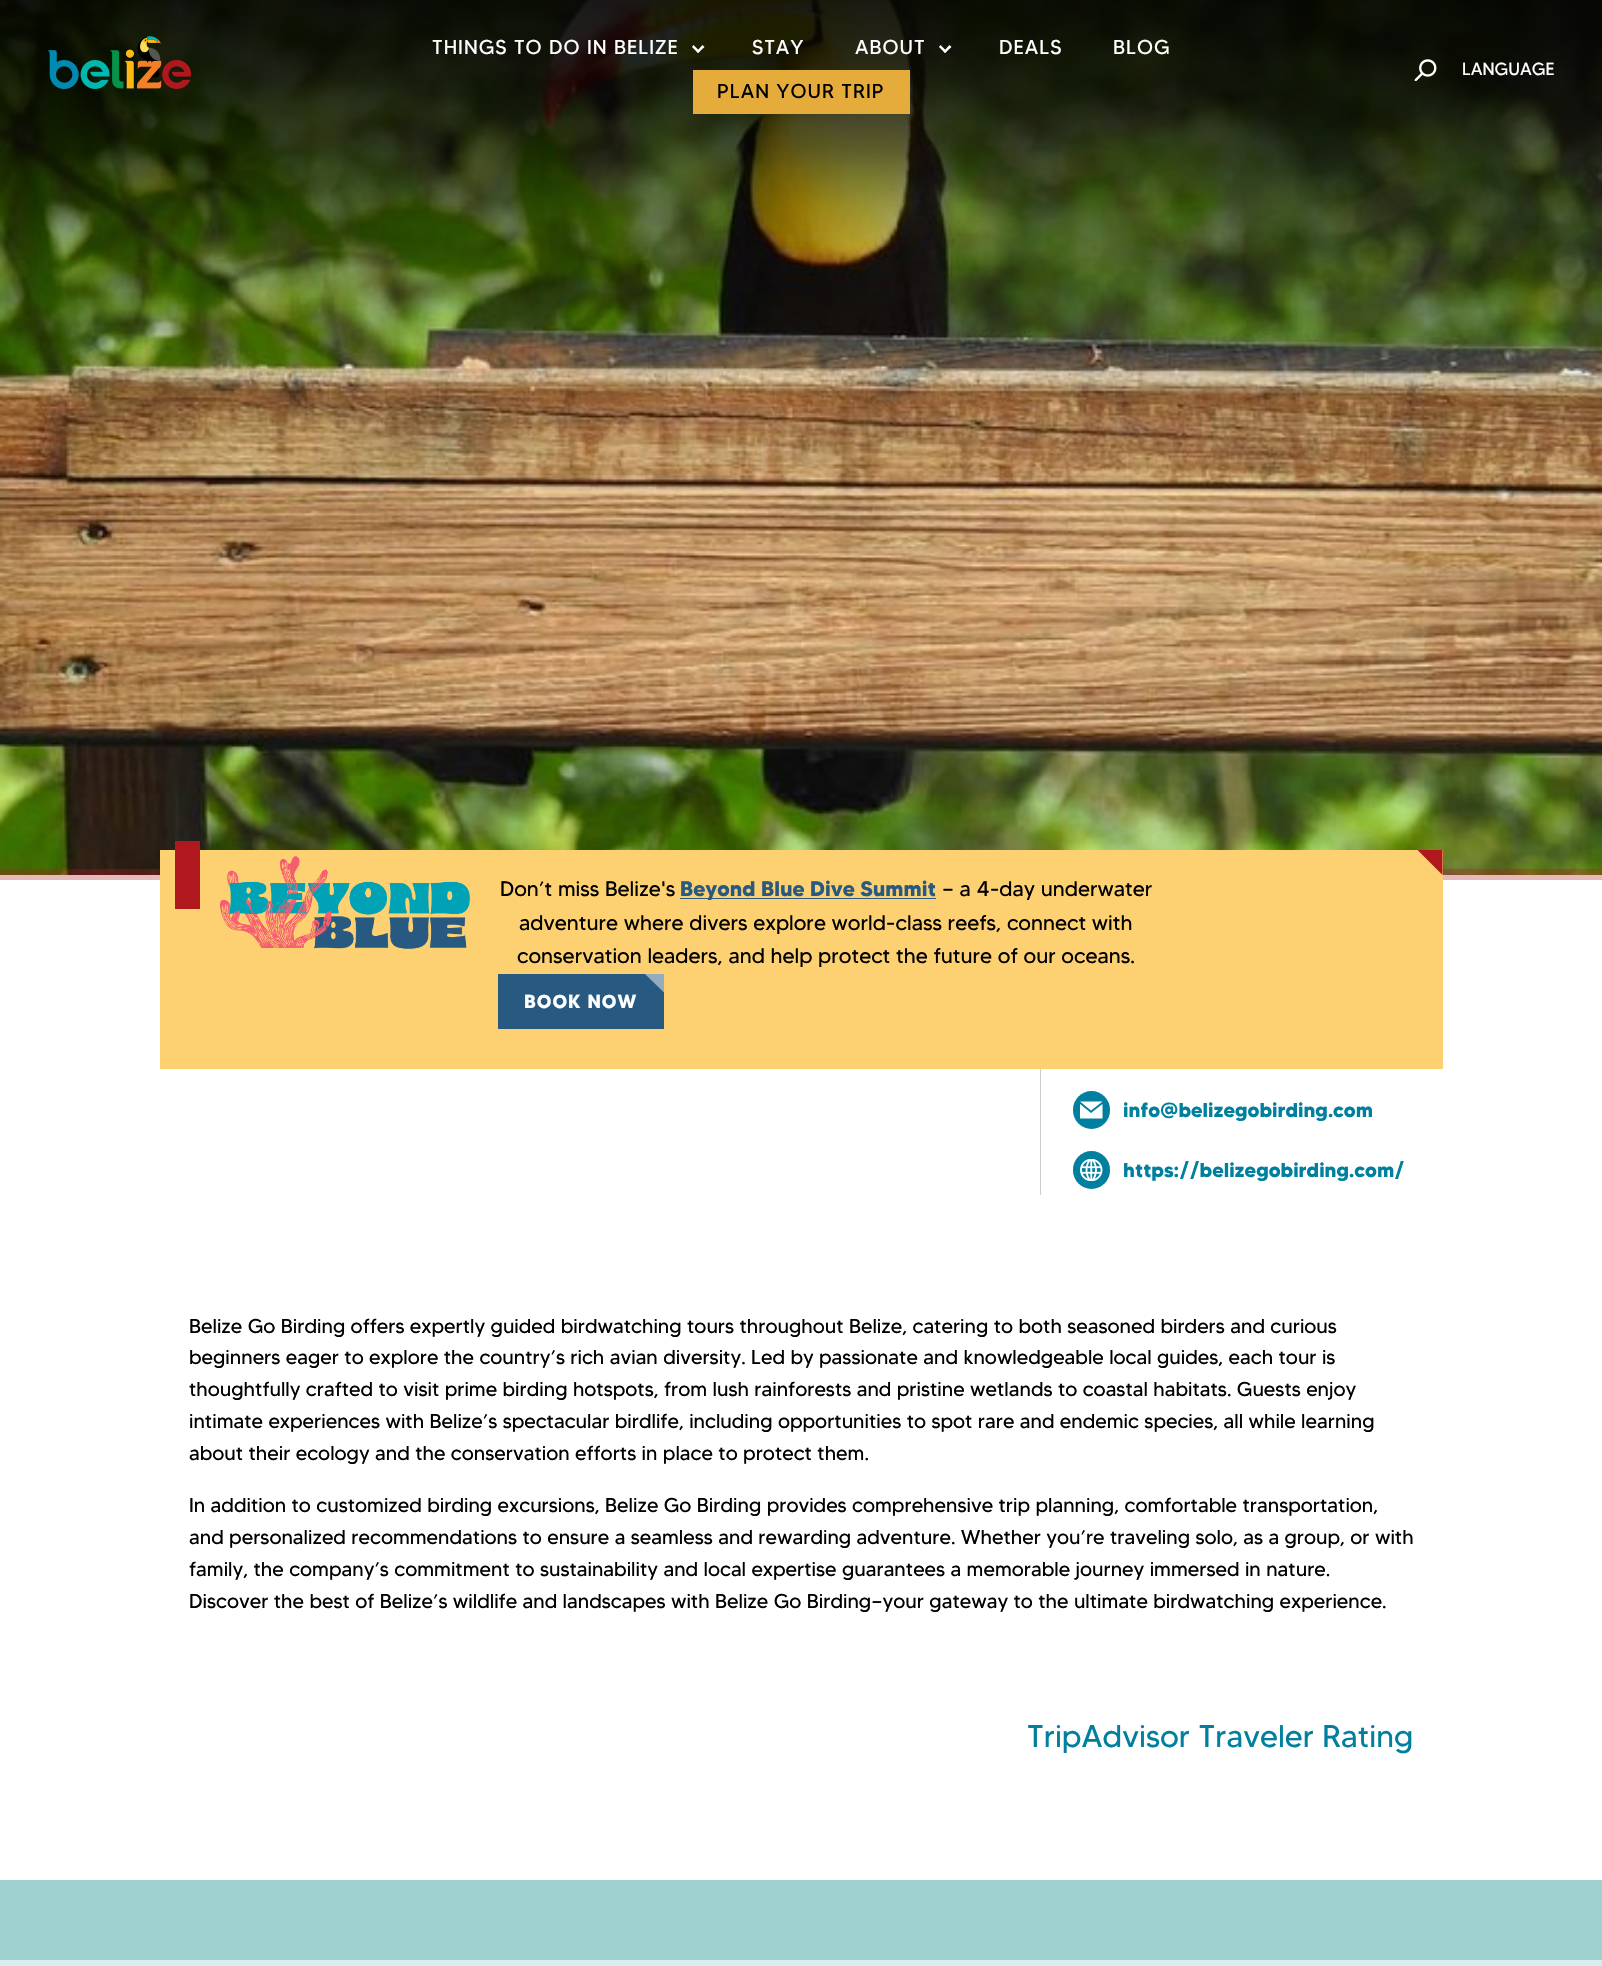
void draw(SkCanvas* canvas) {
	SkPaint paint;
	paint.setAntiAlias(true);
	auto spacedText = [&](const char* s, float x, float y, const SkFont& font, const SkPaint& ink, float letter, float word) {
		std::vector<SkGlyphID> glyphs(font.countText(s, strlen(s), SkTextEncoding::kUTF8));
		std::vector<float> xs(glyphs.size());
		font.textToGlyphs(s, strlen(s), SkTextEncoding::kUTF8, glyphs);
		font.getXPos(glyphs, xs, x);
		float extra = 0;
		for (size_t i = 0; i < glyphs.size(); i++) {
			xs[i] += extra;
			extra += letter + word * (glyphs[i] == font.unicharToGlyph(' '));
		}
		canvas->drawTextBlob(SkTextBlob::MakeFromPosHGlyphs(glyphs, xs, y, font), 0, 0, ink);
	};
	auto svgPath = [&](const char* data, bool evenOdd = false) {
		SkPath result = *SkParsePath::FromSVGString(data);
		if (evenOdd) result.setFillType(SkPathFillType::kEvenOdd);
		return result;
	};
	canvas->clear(0xffffffff);
	canvas->drawImageRect(SkImages::DeferredFromEncodedData(SkData::MakeFromFileName("img3.png")), SkRect::MakeXYWH(0, 0, 1602, 875), SkSamplingOptions());
	canvas->drawImageRect(SkImages::DeferredFromEncodedData(SkData::MakeFromFileName("img1.png")), SkRect::MakeXYWH(48, 36, 143, 53), SkSamplingOptions());
	SkFont f1(fontMgr->matchFamilyStyle("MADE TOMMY", SkFontStyle::Normal()), 20);
	f1.setSubpixel(true);
	paint.setColor(0xffffffff);
	spacedText("THINGS TO DO IN BELIZE", 432, 54, f1, paint, 1, 0);
	canvas->drawPath(svgPath("M702.5 45L704.5 47L698 53L696.5 51.5Z"), paint);
	canvas->drawPath(svgPath("M693.5 45L700 51.5L698 53L692 47Z"), paint);
	spacedText("STAY", 752, 54, f1, paint, 1, 0);
	spacedText("ABOUT", 855, 54, f1, paint, 1, 0);
	canvas->drawPath(svgPath("M949.5 45L951.5 47L945 53L943.5 51.5Z"), paint);
	canvas->drawPath(svgPath("M940.5 45L947 51.5L945 53L939 47Z"), paint);
	spacedText("DEALS", 999, 54, f1, paint, 1, 0);
	spacedText("BLOG", 1113, 54, f1, paint, 1, 0);
	paint.setColor(0xffe5ac3b);
	canvas->drawRect(SkRect::MakeXYWH(693, 70, 217, 44), paint);
	paint.setColor(0xff000000);
	spacedText("PLAN YOUR TRIP", 717, 98, f1, paint, 1, 0);
	canvas->drawImageRect(SkImages::DeferredFromEncodedData(SkData::MakeFromFileName("img2.png")), SkRect::MakeXYWH(1414, 59, 23, 22), SkSamplingOptions());
	SkFont f2(fontMgr->matchFamilyStyle("MADE TOMMY", SkFontStyle::Normal()), 17.5);
	f2.setSubpixel(true);
	paint.setColor(0xffffffff);
	canvas->drawString("LANGUAGE", 1462, 75, f2, paint);
	paint.setColor(0x4db1181e);
	canvas->drawRect(SkRect::MakeXYWH(0, 869, 1602, 11), paint);
	paint.setColor(0xfffdd072);
	canvas->drawRect(SkRect::MakeXYWH(160, 850, 1283, 219), paint);
	paint.setColor(0xffb1181e);
	canvas->drawRect(SkRect::MakeXYWH(175, 841, 25, 68), paint);
	canvas->drawImageRect(SkImages::DeferredFromEncodedData(SkData::MakeFromFileName("img4.png")), SkRect::MakeXYWH(220, 856, 250, 93), SkSamplingOptions());
	SkFont f3(fontMgr->matchFamilyStyle("MADE TOMMY", SkFontStyle::Normal()), 21);
	f3.setSubpixel(true);
	paint.setColor(0xff000000);
	canvas->drawString("Don’t miss Belize's", 500, 896, f3, paint);
	paint.setColor(0xff285981);
	canvas->drawRect(SkRect::MakeXYWH(680, 898, 256, 1), paint);
	SkFont f4(fontMgr->matchFamilyStyle("MADE TOMMY", SkFontStyle::Bold()), 21);
	f4.setSubpixel(true);
	canvas->drawString("Beyond Blue Dive Summit", 680, 896, f4, paint);
	paint.setColor(0xff000000);
	canvas->drawString("— a 4-day underwater", 942, 896, f3, paint);
	canvas->drawString("adventure where divers explore world-class reefs, connect with", 519, 930, f3, paint);
	canvas->drawString("conservation leaders, and help protect the future of our oceans.", 517, 963, f3, paint);
	paint.setColor(0xff285981);
	canvas->drawRect(SkRect::MakeXYWH(498, 974, 166, 55), paint);
	paint.setColor(0xff94acc0);
	canvas->drawPath(svgPath("M664 974V992.5L645 974Z"), paint);
	SkFont f5(fontMgr->matchFamilyStyle("MADE TOMMY", SkFontStyle::Bold()), 18.75);
	f5.setSubpixel(true);
	paint.setColor(0xffffffff);
	spacedText("BOOK NOW", 524, 1008, f5, paint, 1, 0);
	paint.setColor(0xffb1181e);
	canvas->drawPath(svgPath("M1442.5 850V875L1417.5 850Z"), paint);
	paint.setColor(0xffcccccc);
	canvas->drawRect(SkRect::MakeXYWH(1040, 1069, 1, 126), paint);
	paint.setColor(0xff00809e);
	canvas->drawRoundRect(SkRect::MakeXYWH(1073, 1091, 37, 38), 18.5, 18.5, paint);
	paint.setColor(0xffffffff);
	canvas->drawPath(svgPath("M1091 1110.5L1080 1101.5H1102.5ZM1091 1113L1080 1104V1118.5H1102.5V1104Z"), paint);
	SkFont f6(fontMgr->matchFamilyStyle("MADE TOMMY", SkFontStyle::Bold()), 20);
	f6.setSubpixel(true);
	paint.setColor(0xff00809e);
	canvas->drawString("info@belizegobirding.com", 1123, 1117, f6, paint);
	canvas->drawRoundRect(SkRect::MakeXYWH(1073, 1151, 37, 38), 18.5, 18.5, paint);
	canvas->drawImageRect(SkImages::DeferredFromEncodedData(SkData::MakeFromFileName("img5.png")), SkRect::MakeXYWH(1080, 1159, 23, 22), SkSamplingOptions());
	canvas->drawString("https://belizegobirding.com/", 1123, 1177, f6, paint);
	paint.setColor(0xff000000);
	canvas->drawString("Belize Go Birding offers expertly guided birdwatching tours throughout Belize, catering to both seasoned birders and curious", 189, 1333, f1, paint);
	canvas->drawString("beginners eager to explore the country’s rich avian diversity. Led by passionate and knowledgeable local guides, each tour is", 189, 1364, f1, paint);
	canvas->drawString("thoughtfully crafted to visit prime birding hotspots, from lush rainforests and pristine wetlands to coastal habitats. Guests enjoy", 189, 1396, f1, paint);
	canvas->drawString("intimate experiences with Belize’s spectacular birdlife, including opportunities to spot rare and endemic species, all while learning", 189, 1428, f1, paint);
	canvas->drawString("about their ecology and the conservation efforts in place to protect them.", 189, 1460, f1, paint);
	canvas->drawString("In addition to customized birding excursions, Belize Go Birding provides comprehensive trip planning, comfortable transportation,", 189, 1512, f1, paint);
	canvas->drawString("and personalized recommendations to ensure a seamless and rewarding adventure. Whether you’re traveling solo, as a group, or with", 189, 1544, f1, paint);
	canvas->drawString("family, the company’s commitment to sustainability and local expertise guarantees a memorable journey immersed in nature.", 189, 1576, f1, paint);
	canvas->drawString("Discover the best of Belize’s wildlife and landscapes with Belize Go Birding—your gateway to the ultimate birdwatching experience.", 189, 1608, f1, paint);
	SkFont f7(fontMgr->matchFamilyStyle("MADE TOMMY", SkFontStyle::Normal()), 31.25);
	f7.setSubpixel(true);
	paint.setColor(0xff00809e);
	canvas->drawString("TripAdvisor Traveler Rating", 1027, 1747, f7, paint);
	paint.setColor(0xff9ed1cf);
	canvas->drawRect(SkRect::MakeXYWH(0, 1880, 1602, 80), paint);
	paint.setColor(0xffd9ecf0);
	canvas->drawRect(SkRect::MakeXYWH(0, 1960, 1602, 6), paint);
}
